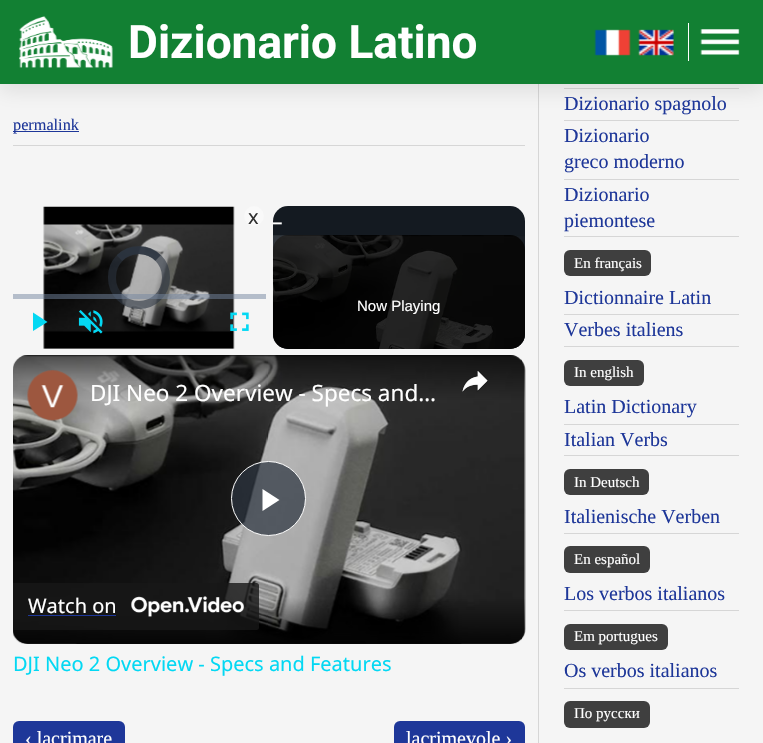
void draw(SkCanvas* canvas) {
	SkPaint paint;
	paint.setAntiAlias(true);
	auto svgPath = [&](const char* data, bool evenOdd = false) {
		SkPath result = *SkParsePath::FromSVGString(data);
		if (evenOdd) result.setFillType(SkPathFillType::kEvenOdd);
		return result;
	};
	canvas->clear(0xfff5f5f5);
	paint.setColor(0xffd6d6d6);
	canvas->drawRect(SkRect::MakeXYWH(538, 84, 1, 659), paint);
	canvas->drawRect(SkRect::MakeXYWH(564, 88, 175, 1), paint);
	canvas->drawRect(SkRect::MakeXYWH(564, 120, 175, 1), paint);
	paint.setColor(0x1a000000);
	paint.setMaskFilter(SkMaskFilter::MakeBlur(kNormal_SkBlurStyle, 10));
	canvas->drawRect(SkRect::MakeXYWH(0, 6, 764, 84), paint);
	paint.setMaskFilter(nullptr);
	paint.setColor(0xff128033);
	canvas->drawRect(SkRect::MakeXYWH(0, 0, 763, 84), paint);
	canvas->drawImageRect(SkImages::DeferredFromEncodedData(SkData::MakeFromFileName("img1.png")), SkRect::MakeXYWH(19, 16, 94, 52), SkSamplingOptions());
	SkFont f1(fontMgr->matchFamilyStyle("Roboto", SkFontStyle::Bold()), 46);
	f1.setSubpixel(true);
	paint.setColor(0xffffffff);
	canvas->drawString("Dizionario Latino", 128, 58, f1, paint);
	canvas->drawImageRect(SkImages::DeferredFromEncodedData(SkData::MakeFromFileName("img2.png")), SkRect::MakeXYWH(594, 29, 37, 27), SkSamplingOptions());
	canvas->drawImageRect(SkImages::DeferredFromEncodedData(SkData::MakeFromFileName("img3.png")), SkRect::MakeXYWH(638, 29, 36, 27), SkSamplingOptions());
	canvas->drawRect(SkRect::MakeXYWH(688, 23, 1, 38), paint);
	canvas->drawImageRect(SkImages::DeferredFromEncodedData(SkData::MakeFromFileName("img4.png")), SkRect::MakeXYWH(700, 29, 40, 26), SkSamplingOptions());
	paint.setColor(0xff1e3799);
	canvas->drawRect(SkRect::MakeXYWH(13, 131, 66, 1), paint);
	SkFont f2(fontMgr->matchFamilyStyle("Liberation Serif", SkFontStyle::Normal()), 16.25);
	f2.setSubpixel(true);
	canvas->drawString("permalink", 13, 130, f2, paint);
	paint.setColor(0xffd6d6d6);
	canvas->drawRect(SkRect::MakeXYWH(13, 145, 512, 1), paint);
	canvas->drawImageRect(SkImages::DeferredFromEncodedData(SkData::MakeFromFileName("img5.png")), SkRect::MakeXYWH(43, 206, 192, 143), SkSamplingOptions());
	paint.setStroke(true);
	paint.setStrokeWidth(8);
	paint.setColor(0x962b333f);
	canvas->drawRoundRect(SkRect::MakeXYWH(112, 250, 54, 55), 27, 27, paint);
	paint.setStrokeWidth(7.5);
	canvas->drawPath(svgPath("M119.5 258C130 247.5 147.5 247.5 158 258"), paint);
	canvas->drawPath(svgPath("M119.5 258C130 247.5 147.5 247.5 158 258"), paint);
	paint.setStroke(false);
	paint.setColor(0x8073859f);
	canvas->drawRect(SkRect::MakeXYWH(13, 294, 253, 5), paint);
	paint.setColor(0xff03d8f3);
	canvas->drawPath(svgPath("M33 312.5V331L47.5 322Z"), paint);
	canvas->drawImageRect(SkImages::DeferredFromEncodedData(SkData::MakeFromFileName("img6.png")), SkRect::MakeXYWH(78, 310, 25, 24), SkSamplingOptions());
	canvas->drawImageRect(SkImages::DeferredFromEncodedData(SkData::MakeFromFileName("img7.png")), SkRect::MakeXYWH(230, 312, 19, 19), SkSamplingOptions());
	paint.setColor(0xfff9f9f9);
	canvas->drawCircle(254, 216, 10, paint);
	SkFont f3(fontMgr->matchFamilyStyle("Noto Sans", SkFontStyle::Normal()), 20);
	f3.setSubpixel(true);
	paint.setColor(0xff313131);
	canvas->drawString("x", 248, 224, f3, paint);
	paint.setColor(0xff141a21);
	canvas->drawRoundRect(SkRect::MakeXYWH(273, 206, 252, 143), 15, 15, paint);
	SkFont f4(fontMgr->matchFamilyStyle("Noto Sans", SkFontStyle::Normal()), 21);
	f4.setSubpixel(true);
	paint.setColor(0xffffffff);
	canvas->drawString("–", 272, 229, f4, paint);
	paint.setColor(0xff000000);
	canvas->drawRoundRect(SkRect::MakeXYWH(273, 235, 252, 114), 15, 15, paint);
	canvas->drawImageRect(SkImages::DeferredFromEncodedData(SkData::MakeFromFileName("img8.png")), SkRect::MakeXYWH(272, 235, 253, 114), SkSamplingOptions());
	SkFont f5(fontMgr->matchFamilyStyle("Liberation Sans", SkFontStyle::Normal()), 15);
	f5.setSubpixel(true);
	paint.setColor(0xffffffff);
	canvas->drawString("Now Playing", 357, 311, f5, paint);
	canvas->drawImageRect(SkImages::DeferredFromEncodedData(SkData::MakeFromFileName("img10.png")), SkRect::MakeXYWH(75, 643, 387, 1), SkSamplingOptions());
	paint.setColor(0xfff9f9f9);
	canvas->drawCircle(513, 365, 10, paint);
	canvas->drawImageRect(SkImages::DeferredFromEncodedData(SkData::MakeFromFileName("img9.png")), SkRect::MakeXYWH(13, 355, 513, 289), SkSamplingOptions());
	paint.setColor(0xb32b333f);
	canvas->drawCircle(268.5, 498.5, 37, paint);
	paint.setStroke(true);
	paint.setStrokeWidth(1);
	paint.setColor(0xffffffff);
	canvas->drawCircle(268.5, 498.5, 37, paint);
	paint.setStroke(false);
	canvas->drawPath(svgPath("M262.5 489V511L279.5 500Z"), paint);
	{
		const SkColor colors[] = {0x99000000, 0x00000000, 0x00000000, 0xcc000000};
		const float stops[] = {0, 0.16, 0.84, 1};
		const SkPoint ends[] = {{269, 355}, {269, 644}};
		paint.setShader(SkGradientShader::MakeLinear(ends, colors, stops, 4, SkTileMode::kClamp));
		paint.setAlpha(255);
	}
	canvas->drawRoundRect(SkRect::MakeXYWH(13, 355, 512, 289), 15, 15, paint);
	canvas->drawImageRect(SkImages::DeferredFromEncodedData(SkData::MakeFromFileName("img11.png")), SkRect::MakeXYWH(27, 370, 51, 51), SkSamplingOptions());
	SkFont f6(fontMgr->matchFamilyStyle("Noto Sans", SkFontStyle::Normal()), 22.5);
	f6.setSubpixel(true);
	paint.setShader(nullptr);
	paint.setColor(0xffffffff);
	canvas->drawString("DJI Neo 2 Overview - Specs and…", 90, 401, f6, paint);
	canvas->drawImageRect(SkImages::DeferredFromEncodedData(SkData::MakeFromFileName("img12.png")), SkRect::MakeXYWH(462, 371, 26, 21), SkSamplingOptions());
	paint.setColor(0xcc171717);
	canvas->drawPath(svgPath("M13 583H256.5C258 583 259 584 259 585.5V627.5C259 629 258 630 256.5 630H13Z"), paint);
	paint.setColor(0xffffffff);
	canvas->drawString("Watch on", 28, 613, f3, paint);
	paint.setColor(0xff1e3799);
	canvas->drawRect(SkRect::MakeXYWH(28, 615, 88, 1), paint);
	canvas->drawImageRect(SkImages::DeferredFromEncodedData(SkData::MakeFromFileName("img13.png")), SkRect::MakeXYWH(131, 596, 113, 21), SkSamplingOptions());
	paint.setColor(0xff03d8f3);
	canvas->drawString("DJI Neo 2 Overview - Specs and Features", 13, 671, f3, paint);
	paint.setColor(0xff1e3799);
	canvas->drawRoundRect(SkRect::MakeXYWH(13, 721, 112, 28), 6, 6, paint);
	SkFont f7(fontMgr->matchFamilyStyle("Liberation Serif", SkFontStyle::Normal()), 20);
	f7.setSubpixel(true);
	paint.setColor(0xffffffff);
	canvas->drawString("‹ lacrimare", 25, 745, f7, paint);
	paint.setColor(0xff1e3799);
	canvas->drawRoundRect(SkRect::MakeXYWH(394, 721, 131, 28), 6, 6, paint);
	paint.setColor(0xffffffff);
	canvas->drawString("lacrimevole ›", 406, 745, f7, paint);
	paint.setColor(0xff1e3799);
	canvas->drawString("Dizionario spagnolo", 564, 110, f7, paint);
	paint.setColor(0xffd6d6d6);
	canvas->drawRect(SkRect::MakeXYWH(564, 179, 175, 1), paint);
	paint.setColor(0xff1e3799);
	canvas->drawString("Dizionario", 564, 142, f7, paint);
	canvas->drawString("greco moderno", 564, 168, f7, paint);
	paint.setColor(0xffd6d6d6);
	canvas->drawRect(SkRect::MakeXYWH(564, 236, 175, 1), paint);
	paint.setColor(0xff1e3799);
	canvas->drawString("Dizionario", 564, 201, f7, paint);
	canvas->drawString("piemontese", 564, 227, f7, paint);
	paint.setColor(0xff3f3f3f);
	canvas->drawRoundRect(SkRect::MakeXYWH(564, 250, 87, 26), 6, 6, paint);
	SkFont f8(fontMgr->matchFamilyStyle("Liberation Serif", SkFontStyle::Normal()), 15);
	f8.setSubpixel(true);
	paint.setColor(0xffffffff);
	canvas->drawString("En français", 574, 268, f8, paint);
	paint.setColor(0xffd6d6d6);
	canvas->drawRect(SkRect::MakeXYWH(564, 314, 175, 1), paint);
	paint.setColor(0xff1e3799);
	canvas->drawString("Dictionnaire Latin", 564, 304, f7, paint);
	paint.setColor(0xffd6d6d6);
	canvas->drawRect(SkRect::MakeXYWH(564, 346, 175, 1), paint);
	paint.setColor(0xff1e3799);
	canvas->drawString("Verbes italiens", 564, 336, f7, paint);
	paint.setColor(0xff3f3f3f);
	canvas->drawRoundRect(SkRect::MakeXYWH(564, 360, 80, 26), 6, 6, paint);
	paint.setColor(0xffffffff);
	canvas->drawString("In english", 574, 377, f8, paint);
	paint.setColor(0xffd6d6d6);
	canvas->drawRect(SkRect::MakeXYWH(564, 424, 175, 1), paint);
	paint.setColor(0xff1e3799);
	canvas->drawString("Latin Dictionary", 564, 413, f7, paint);
	paint.setColor(0xffd6d6d6);
	canvas->drawRect(SkRect::MakeXYWH(564, 455, 175, 1), paint);
	paint.setColor(0xff1e3799);
	canvas->drawString("Italian Verbs", 564, 446, f7, paint);
	paint.setColor(0xff3f3f3f);
	canvas->drawRoundRect(SkRect::MakeXYWH(564, 469, 85, 26), 6, 6, paint);
	paint.setColor(0xffffffff);
	canvas->drawString("In Deutsch", 574, 487, f8, paint);
	paint.setColor(0xffd6d6d6);
	canvas->drawRect(SkRect::MakeXYWH(564, 533, 175, 1), paint);
	paint.setColor(0xff1e3799);
	canvas->drawString("Italienische Verben", 564, 523, f7, paint);
	paint.setColor(0xff3f3f3f);
	canvas->drawRoundRect(SkRect::MakeXYWH(564, 546, 86, 27), 6, 6, paint);
	paint.setColor(0xffffffff);
	canvas->drawString("En español", 574, 564, f8, paint);
	paint.setColor(0xffd6d6d6);
	canvas->drawRect(SkRect::MakeXYWH(564, 610, 175, 1), paint);
	paint.setColor(0xff1e3799);
	canvas->drawString("Los verbos italianos", 564, 600, f7, paint);
	paint.setColor(0xff3f3f3f);
	canvas->drawRoundRect(SkRect::MakeXYWH(564, 624, 104, 26), 6, 6, paint);
	paint.setColor(0xffffffff);
	canvas->drawString("Em portugues", 574, 641, f8, paint);
	paint.setColor(0xffd6d6d6);
	canvas->drawRect(SkRect::MakeXYWH(564, 688, 175, 1), paint);
	paint.setColor(0xff1e3799);
	canvas->drawString("Os verbos italianos", 564, 677, f7, paint);
	paint.setColor(0xff3f3f3f);
	canvas->drawRoundRect(SkRect::MakeXYWH(564, 701, 86, 27), 6, 6, paint);
	paint.setColor(0xffffffff);
	canvas->drawString("По русски", 574, 718, f8, paint);
}
